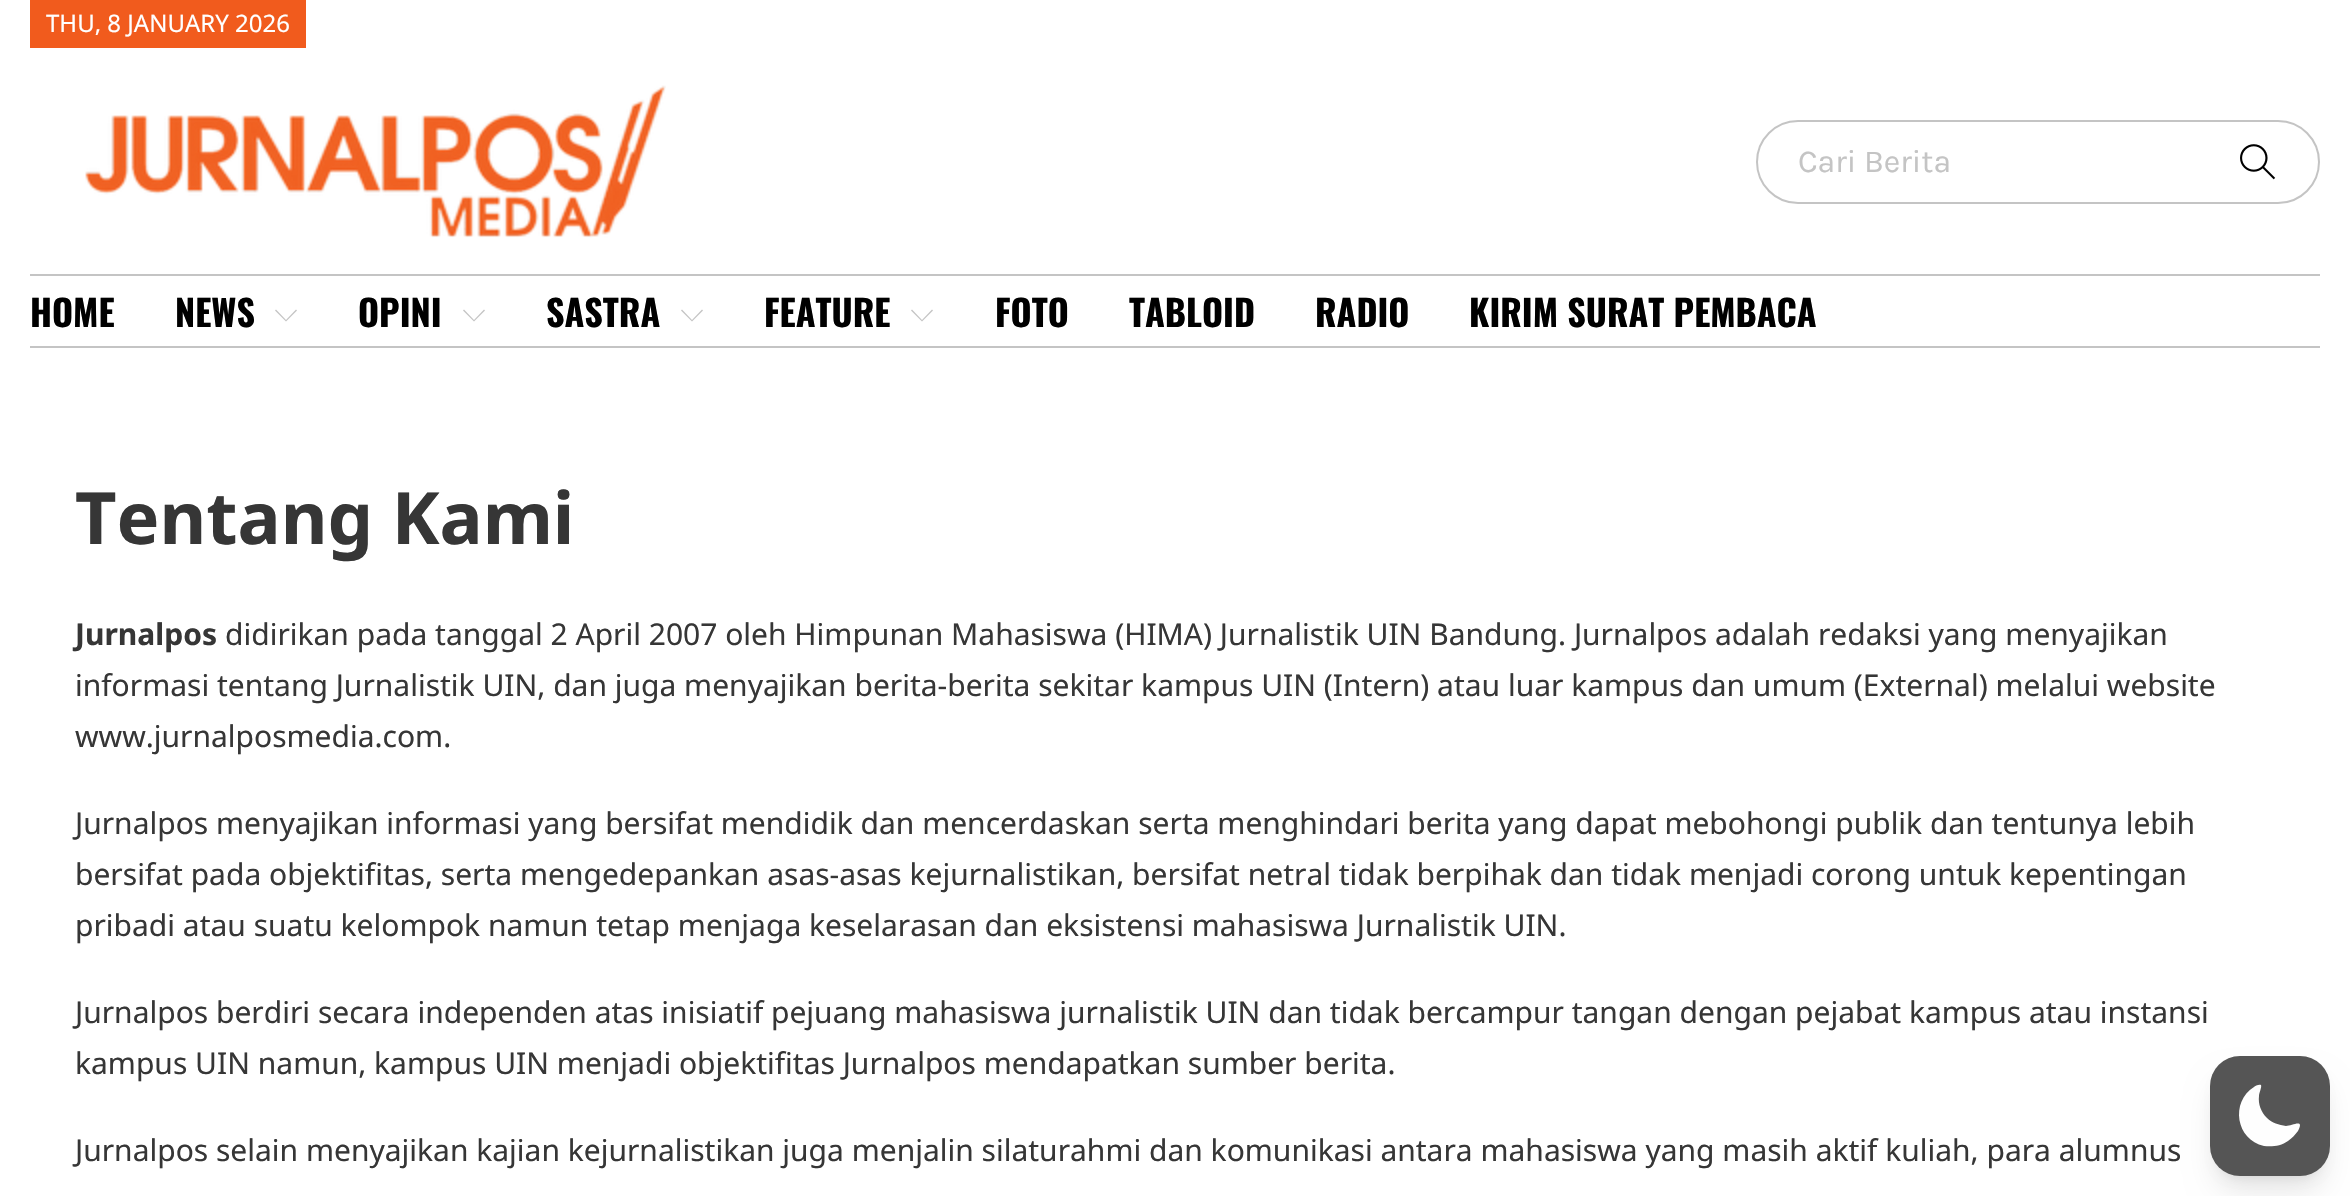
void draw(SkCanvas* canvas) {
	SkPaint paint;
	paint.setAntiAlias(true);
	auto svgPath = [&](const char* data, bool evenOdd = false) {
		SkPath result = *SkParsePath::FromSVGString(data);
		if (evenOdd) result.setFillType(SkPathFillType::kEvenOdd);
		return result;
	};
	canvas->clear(0xffffffff);
	paint.setColor(0xfff15b1d);
	canvas->drawRect(SkRect::MakeXYWH(30, 0, 276, 48), paint);
	SkFont f1(fontMgr->matchFamilyStyle("Noto Sans", SkFontStyle::Normal()), 24);
	f1.setSubpixel(true);
	paint.setColor(0xffffffff);
	canvas->drawString("THU, 8 JANUARY 2026", 46, 32, f1, paint);
	canvas->drawImageRect(SkImages::DeferredFromEncodedData(SkData::MakeFromFileName("img1.png")), SkRect::MakeXYWH(85, 85, 581, 153), SkSamplingOptions());
	paint.setStroke(true);
	paint.setStrokeWidth(2);
	paint.setColor(0xffc4c4c4);
	canvas->drawRoundRect(SkRect::MakeXYWH(1757, 121, 562, 82), 41, 41, paint);
	SkFont f2(fontMgr->matchFamilyStyle("Karla", SkFontStyle::Normal()), 32);
	f2.setSubpixel(true);
	paint.setStroke(false);
	canvas->drawString("Cari Berita", 1798, 172, f2, paint);
	canvas->drawImageRect(SkImages::DeferredFromEncodedData(SkData::MakeFromFileName("img2.png")), SkRect::MakeXYWH(2240, 144, 36, 36), SkSamplingOptions());
	canvas->drawRect(SkRect::MakeXYWH(30, 274, 2290, 2), paint);
	canvas->drawRect(SkRect::MakeXYWH(30, 346, 2290, 2), paint);
	SkFont f3(fontMgr->matchFamilyStyle("Oswald", SkFontStyle::Bold()), 36);
	f3.setSubpixel(true);
	paint.setColor(0xff000000);
	canvas->drawString("HOME", 30, 327, f3, paint);
	canvas->drawString("NEWS", 175, 327, f3, paint);
	paint.setColor(0xffc4c4c4);
	canvas->drawPath(svgPath("M297 310.5L286 321.5L275 310.5L276 309.5L286 320L296 309.5Z"), paint);
	paint.setColor(0xff000000);
	canvas->drawString("OPINI", 358, 327, f3, paint);
	paint.setColor(0xffc4c4c4);
	canvas->drawPath(svgPath("M485 310.5L474 321.5L463 310.5L464 309.5L474 320L484 309.5Z"), paint);
	paint.setColor(0xff000000);
	canvas->drawString("SASTRA", 546, 327, f3, paint);
	paint.setColor(0xffc4c4c4);
	canvas->drawPath(svgPath("M703 310.5L692 321.5L681 310.5L682 309.5L692 320L702 309.5Z"), paint);
	paint.setColor(0xff000000);
	canvas->drawString("FEATURE", 764, 327, f3, paint);
	paint.setColor(0xffc4c4c4);
	canvas->drawPath(svgPath("M933 310.5L922 321.5L911 310.5L912 309.5L922 320L932 309.5Z"), paint);
	paint.setColor(0xff000000);
	canvas->drawString("FOTO", 995, 327, f3, paint);
	canvas->drawString("TABLOID", 1129, 327, f3, paint);
	canvas->drawString("RADIO", 1315, 327, f3, paint);
	canvas->drawString("KIRIM SURAT PEMBACA", 1469, 327, f3, paint);
	SkFont f4(fontMgr->matchFamilyStyle("Noto Sans", SkFontStyle::Bold()), 72);
	f4.setSubpixel(true);
	paint.setColor(0xff363636);
	canvas->drawString("Tentang Kami", 75, 544, f4, paint);
	SkFont f5(fontMgr->matchFamilyStyle("Noto Sans", SkFontStyle::Bold()), 30);
	f5.setSubpixel(true);
	canvas->drawString("Jurnalpos", 75, 645, f5, paint);
	SkFont f6(fontMgr->matchFamilyStyle("Noto Sans", SkFontStyle::Normal()), 30);
	f6.setSubpixel(true);
	canvas->drawString("didirikan pada tanggal 2 April 2007 oleh Himpunan Mahasiswa (HIMA) Jurnalistik UIN Bandung. Jurnalpos adalah redaksi yang menyajikan", 225, 645, f6, paint);
	canvas->drawString("informasi tentang Jurnalistik UIN, dan juga menyajikan berita-berita sekitar kampus UIN (Intern) atau luar kampus dan umum (External) melalui website", 75, 696, f6, paint);
	canvas->drawString("www.jurnalposmedia.com.", 75, 747, f6, paint);
	canvas->drawString("Jurnalpos menyajikan informasi yang bersifat mendidik dan mencerdaskan serta menghindari berita yang dapat mebohongi publik dan tentunya lebih", 75, 834, f6, paint);
	canvas->drawString("bersifat pada objektifitas, serta mengedepankan asas-asas kejurnalistikan, bersifat netral tidak berpihak dan tidak menjadi corong untuk kepentingan", 75, 885, f6, paint);
	canvas->drawString("pribadi atau suatu kelompok namun tetap menjaga keselarasan dan eksistensi mahasiswa Jurnalistik UIN.", 75, 936, f6, paint);
	canvas->drawString("Jurnalpos berdiri secara independen atas inisiatif pejuang mahasiswa jurnalistik UIN dan tidak bercampur tangan dengan pejabat kampus atau instansi", 75, 1023, f6, paint);
	canvas->drawString("kampus UIN namun, kampus UIN menjadi objektifitas Jurnalpos mendapatkan sumber berita.", 75, 1074, f6, paint);
	canvas->drawString("Jurnalpos selain menyajikan kajian kejurnalistikan juga menjalin silaturahmi dan komunikasi antara mahasiswa yang masih aktif kuliah, para alumnus", 75, 1161, f6, paint);
	paint.setColor(0x1a000000);
	paint.setMaskFilter(SkMaskFilter::MakeBlur(kNormal_SkBlurStyle, 6));
	canvas->drawRoundRect(SkRect::MakeXYWH(2218, 1072, 104, 104), 22, 22, paint);
	paint.setMaskFilter(nullptr);
	paint.setMaskFilter(SkMaskFilter::MakeBlur(kNormal_SkBlurStyle, 15));
	canvas->drawRoundRect(SkRect::MakeXYWH(2216, 1082, 108, 108), 24, 24, paint);
	paint.setMaskFilter(nullptr);
	paint.setColor(0xff555555);
	canvas->drawRoundRect(SkRect::MakeXYWH(2210, 1056, 120, 120), 30, 30, paint);
	paint.setColor(0xfffefefe);
	canvas->drawPath(svgPath("M2261 1085C2262 1087 2259 1093 2259 1096C2258 1104 2261 1112 2267 1118C2272 1123 2279 1125 2286 1126C2292 1126 2305 1118 2298 1131C2295 1135 2292 1138 2288 1141C2281 1146 2272 1147 2264 1146C2236 1140 2230 1102 2254 1087C2255 1086 2259 1084 2261 1085Z", true), paint);
}
